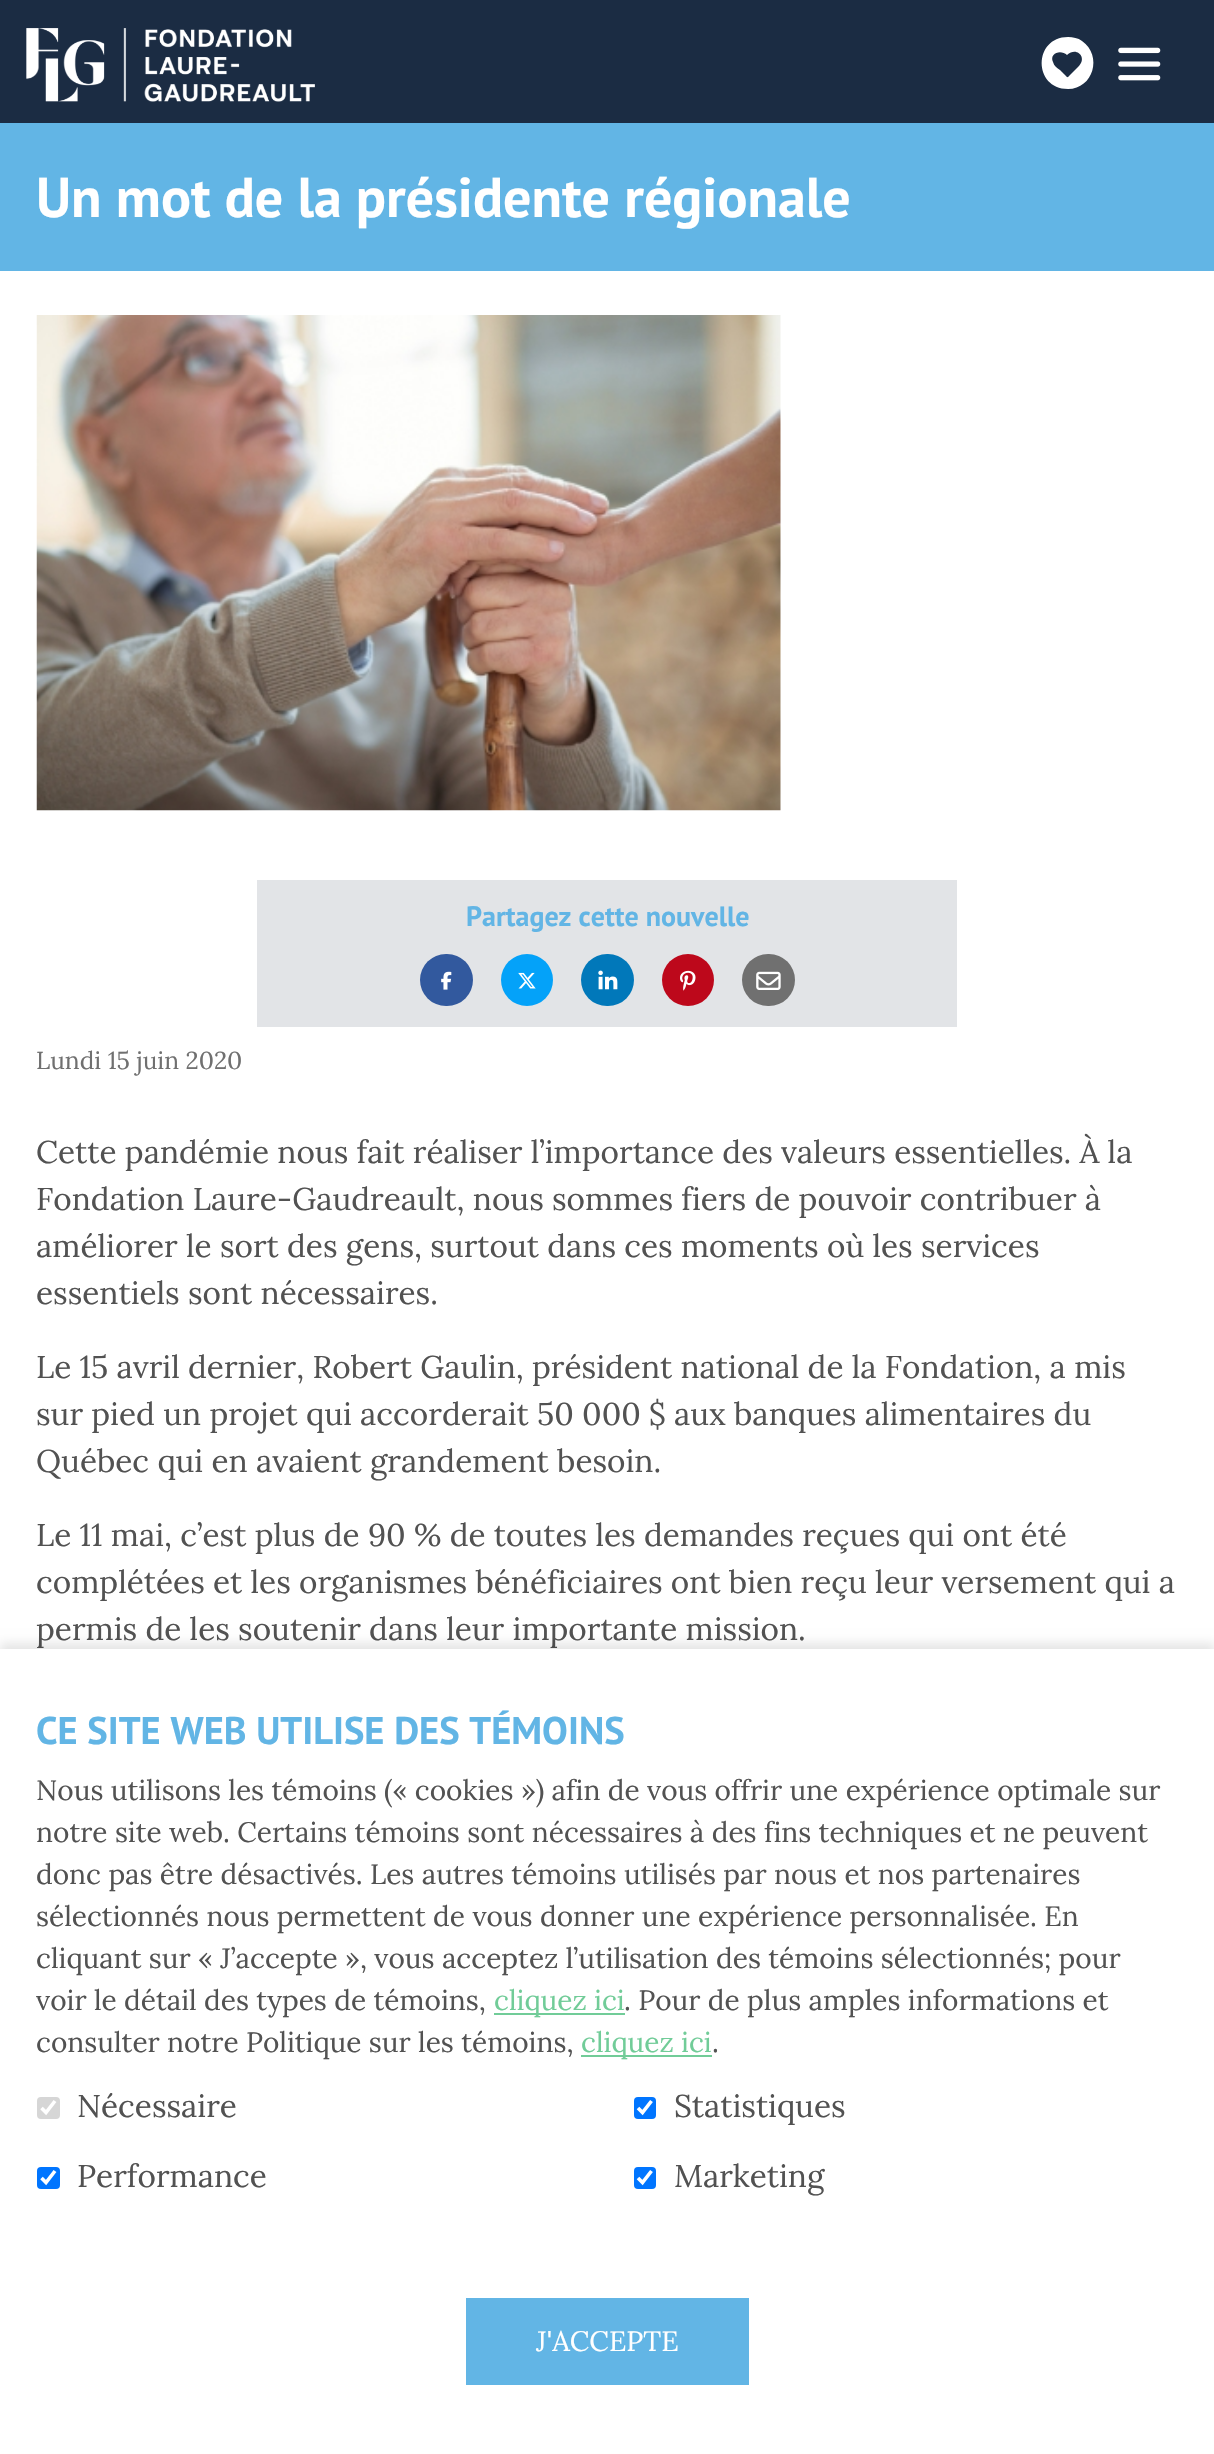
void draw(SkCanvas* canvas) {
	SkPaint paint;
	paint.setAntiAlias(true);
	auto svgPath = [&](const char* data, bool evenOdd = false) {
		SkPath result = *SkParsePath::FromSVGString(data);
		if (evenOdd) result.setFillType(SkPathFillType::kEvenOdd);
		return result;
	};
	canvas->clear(0xffffffff);
	paint.setColor(0xff1b2c43);
	canvas->drawRect(SkRect::MakeXYWH(0, 0, 1214, 123), paint);
	canvas->drawImageRect(SkImages::DeferredFromEncodedData(SkData::MakeFromFileName("img1.png")), SkRect::MakeXYWH(26, 28, 289, 74), SkSamplingOptions());
	paint.setColor(0xffffffff);
	canvas->drawPath(svgPath("M1068 37C1033 37 1033 89 1068 89C1093 89 1103 56 1082 41C1078 38 1073 37 1068 37ZM1078 67L1070 75C1067 78 1068 78 1065 75L1060 70C1057 68 1054 66 1053 62C1049 53 1061 49 1067 55C1077 46 1088 58 1078 67Z"), paint);
	canvas->drawImageRect(SkImages::DeferredFromEncodedData(SkData::MakeFromFileName("img2.png")), SkRect::MakeXYWH(1118, 47, 43, 34), SkSamplingOptions());
	paint.setColor(0xff62b5e5);
	canvas->drawRect(SkRect::MakeXYWH(0, 123, 1214, 148), paint);
	SkFont f1(fontMgr->matchFamilyStyle("PT Sans", SkFontStyle::Bold()), 56);
	f1.setSubpixel(true);
	paint.setColor(0xffffffff);
	canvas->drawString("Un mot de la présidente régionale", 36, 217, f1, paint);
	canvas->drawImageRect(SkImages::DeferredFromEncodedData(SkData::MakeFromFileName("img3.png")), SkRect::MakeXYWH(36, 315, 745, 496), SkSamplingOptions());
	paint.setColor(0xffe2e4e7);
	canvas->drawRect(SkRect::MakeXYWH(257, 880, 700, 147), paint);
	SkFont f2(fontMgr->matchFamilyStyle("PT Sans", SkFontStyle::Bold()), 28);
	f2.setSubpixel(true);
	paint.setColor(0xff62b5e5);
	canvas->drawString("Partagez cette nouvelle", 466, 926, f2, paint);
	paint.setColor(0xff32599e);
	canvas->drawRoundRect(SkRect::MakeXYWH(420, 954, 53, 52), 26, 26, paint);
	canvas->drawImageRect(SkImages::DeferredFromEncodedData(SkData::MakeFromFileName("img4.png")), SkRect::MakeXYWH(441, 971, 11, 19), SkSamplingOptions());
	paint.setColor(0xff04a2f9);
	canvas->drawCircle(527, 980, 26, paint);
	canvas->drawImageRect(SkImages::DeferredFromEncodedData(SkData::MakeFromFileName("img5.png")), SkRect::MakeXYWH(518, 972, 18, 17), SkSamplingOptions());
	paint.setColor(0xff0178ba);
	canvas->drawRoundRect(SkRect::MakeXYWH(581, 954, 53, 52), 26, 26, paint);
	canvas->drawImageRect(SkImages::DeferredFromEncodedData(SkData::MakeFromFileName("img6.png")), SkRect::MakeXYWH(598, 970, 20, 20), SkSamplingOptions());
	paint.setColor(0xffbd081b);
	canvas->drawCircle(688, 980, 26, paint);
	canvas->drawImageRect(SkImages::DeferredFromEncodedData(SkData::MakeFromFileName("img7.png")), SkRect::MakeXYWH(680, 970, 16, 21), SkSamplingOptions());
	paint.setColor(0xff707070);
	canvas->drawRoundRect(SkRect::MakeXYWH(742, 954, 53, 52), 26, 26, paint);
	canvas->drawImageRect(SkImages::DeferredFromEncodedData(SkData::MakeFromFileName("img8.png")), SkRect::MakeXYWH(756, 971, 25, 19), SkSamplingOptions());
	SkFont f3(fontMgr->matchFamilyStyle("Lora", SkFontStyle::Normal()), 24.5);
	f3.setSubpixel(true);
	canvas->drawString("Lundi 15 juin 2020", 36, 1069, f3, paint);
	SkFont f4(fontMgr->matchFamilyStyle("Lora", SkFontStyle::Normal()), 31.5);
	f4.setSubpixel(true);
	paint.setColor(0xff525252);
	canvas->drawString("Cette pandémie nous fait réaliser l’importance des valeurs essentielles. À la", 36, 1163, f4, paint);
	canvas->drawString("Fondation Laure-Gaudreault, nous sommes fiers de pouvoir contribuer à", 36, 1210, f4, paint);
	canvas->drawString("améliorer le sort des gens, surtout dans ces moments où les services", 36, 1257, f4, paint);
	canvas->drawString("essentiels sont nécessaires.", 36, 1304, f4, paint);
	canvas->drawString("Le 15 avril dernier, Robert Gaulin, président national de la Fondation, a mis", 36, 1378, f4, paint);
	canvas->drawString("sur pied un projet qui accorderait 50 000 $ aux banques alimentaires du", 36, 1425, f4, paint);
	canvas->drawString("Québec qui en avaient grandement besoin.", 36, 1472, f4, paint);
	canvas->drawString("Le 11 mai, c’est plus de 90 % de toutes les demandes reçues qui ont été", 36, 1546, f4, paint);
	canvas->drawString("complétées et les organismes bénéficiaires ont bien reçu leur versement qui a", 36, 1593, f4, paint);
	canvas->drawString("permis de les soutenir dans leur importante mission.", 36, 1640, f4, paint);
	paint.setColor(0x1a000000);
	paint.setMaskFilter(SkMaskFilter::MakeBlur(kNormal_SkBlurStyle, 5));
	canvas->drawRect(SkRect::MakeXYWH(0, 1643, 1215, 807), paint);
	paint.setMaskFilter(nullptr);
	paint.setColor(0xffffffff);
	canvas->drawRect(SkRect::MakeXYWH(0, 1649, 1214, 805), paint);
	SkFont f5(fontMgr->matchFamilyStyle("PT Sans", SkFontStyle::Bold()), 38.5);
	f5.setSubpixel(true);
	paint.setColor(0xff62b5e5);
	canvas->drawString("CE SITE WEB UTILISE DES TÉMOINS", 36, 1744, f5, paint);
	SkFont f6(fontMgr->matchFamilyStyle("Lora", SkFontStyle::Normal()), 28);
	f6.setSubpixel(true);
	paint.setColor(0xff525252);
	canvas->drawString("Nous utilisons les témoins (« cookies ») afin de vous offrir une expérience optimale sur", 36, 1800, f6, paint);
	canvas->drawString("notre site web. Certains témoins sont nécessaires à des fins techniques et ne peuvent", 36, 1842, f6, paint);
	canvas->drawString("donc pas être désactivés. Les autres témoins utilisés par nous et nos partenaires", 36, 1884, f6, paint);
	canvas->drawString("sélectionnés nous permettent de vous donner une expérience personnalisée. En", 36, 1926, f6, paint);
	canvas->drawString("cliquant sur « J’accepte », vous acceptez l’utilisation des témoins sélectionnés; pour", 36, 1968, f6, paint);
	canvas->drawString("voir le détail des types de témoins,", 36, 2010, f6, paint);
	paint.setColor(0xff71cc98);
	canvas->drawRect(SkRect::MakeXYWH(494, 2013, 131, 2), paint);
	canvas->drawString("cliquez ici", 494, 2010, f6, paint);
	paint.setColor(0xff525252);
	canvas->drawString(". Pour de plus amples informations et", 624, 2010, f6, paint);
	canvas->drawString("consulter notre Politique sur les témoins,", 36, 2052, f6, paint);
	paint.setColor(0xff71cc98);
	canvas->drawRect(SkRect::MakeXYWH(581, 2055, 131, 2), paint);
	canvas->drawString("cliquez ici", 581, 2052, f6, paint);
	paint.setColor(0xff525252);
	canvas->drawString(".", 712, 2052, f6, paint);
	paint.setColor(0xffd6d6d6);
	canvas->drawRoundRect(SkRect::MakeXYWH(37, 2097, 23, 22), 4, 4, paint);
	paint.setStroke(true);
	paint.setStrokeWidth(3.6);
	paint.setColor(0xffffffff);
	canvas->drawPath(svgPath("M41.5 2108L46 2112.5L55 2101"), paint);
	paint.setStroke(false);
	paint.setColor(0xff525252);
	canvas->drawString("Nécessaire", 77, 2117, f4, paint);
	paint.setColor(0xff0075ff);
	canvas->drawRoundRect(SkRect::MakeXYWH(634, 2097, 22, 22), 4, 4, paint);
	paint.setStroke(true);
	paint.setColor(0xffffffff);
	canvas->drawPath(svgPath("M638 2108L642.5 2112.5L651.5 2101"), paint);
	paint.setStroke(false);
	paint.setColor(0xff525252);
	canvas->drawString("Statistiques", 674, 2117, f4, paint);
	paint.setColor(0xff0075ff);
	canvas->drawRoundRect(SkRect::MakeXYWH(37, 2167, 23, 22), 4, 4, paint);
	paint.setStroke(true);
	paint.setColor(0xffffffff);
	canvas->drawPath(svgPath("M41.5 2178L46 2182.5L55 2171"), paint);
	paint.setStroke(false);
	paint.setColor(0xff525252);
	canvas->drawString("Performance", 77, 2187, f4, paint);
	paint.setColor(0xff0075ff);
	canvas->drawRoundRect(SkRect::MakeXYWH(634, 2167, 22, 22), 4, 4, paint);
	paint.setStroke(true);
	paint.setColor(0xffffffff);
	canvas->drawPath(svgPath("M638 2178L642.5 2182.5L651.5 2171"), paint);
	paint.setStroke(false);
	paint.setColor(0xff525252);
	canvas->drawString("Marketing", 674, 2187, f4, paint);
	paint.setColor(0xff62b5e5);
	canvas->drawRect(SkRect::MakeXYWH(466, 2298, 283, 87), paint);
	paint.setColor(0xffffffff);
	canvas->drawString("J'ACCEPTE", 536, 2351, f6, paint);
}
